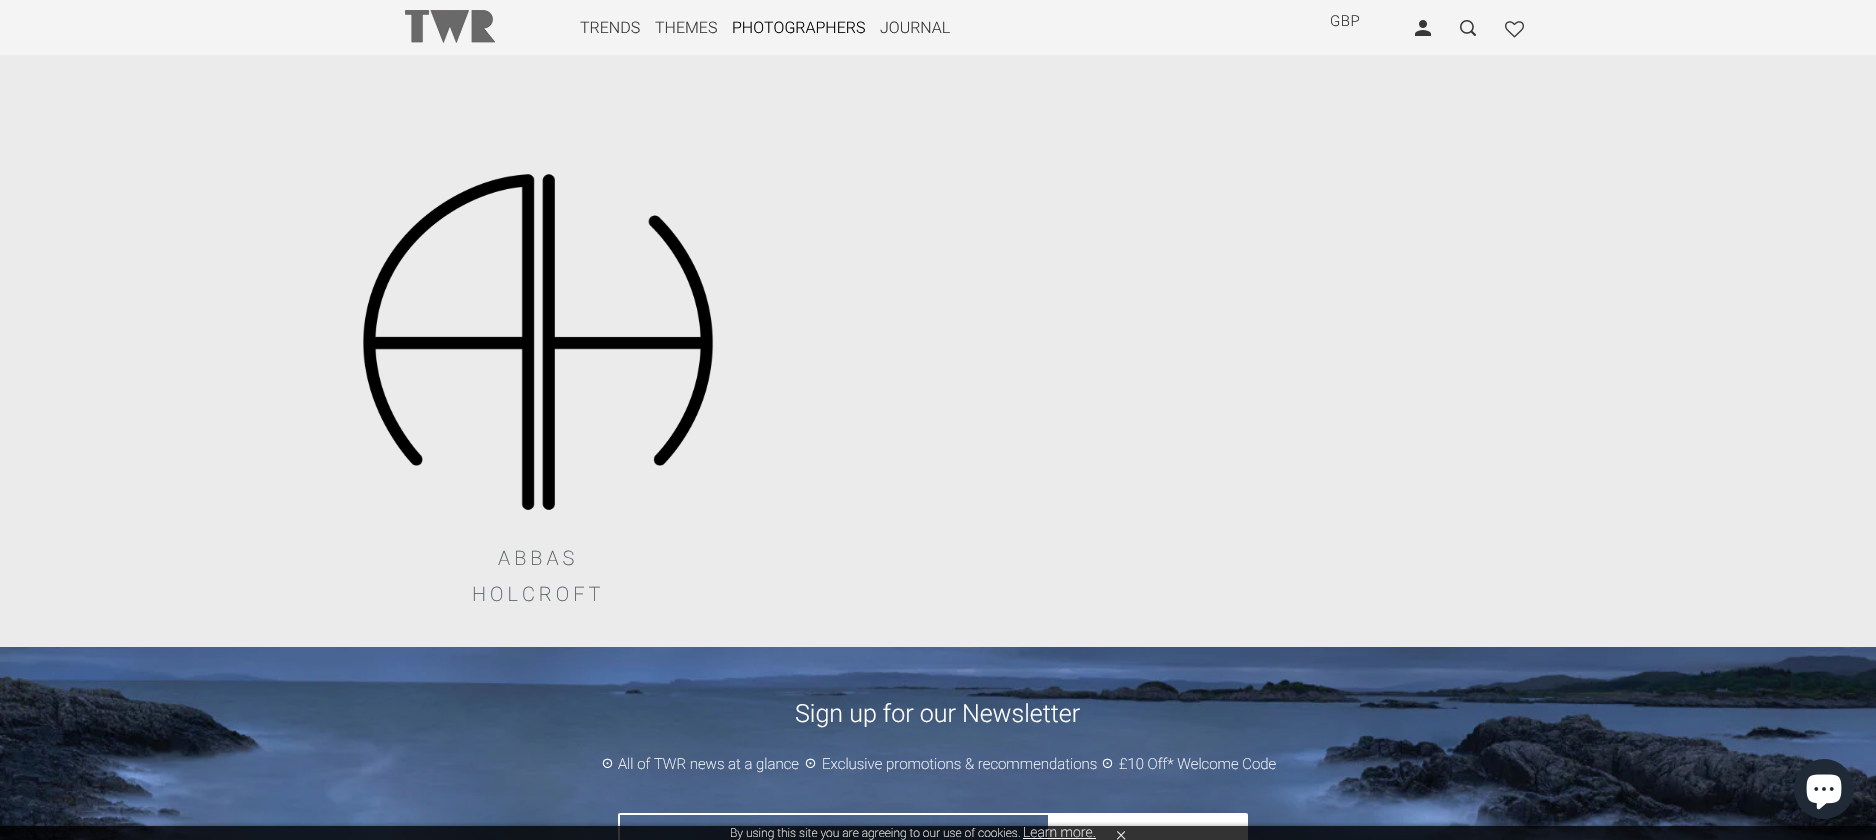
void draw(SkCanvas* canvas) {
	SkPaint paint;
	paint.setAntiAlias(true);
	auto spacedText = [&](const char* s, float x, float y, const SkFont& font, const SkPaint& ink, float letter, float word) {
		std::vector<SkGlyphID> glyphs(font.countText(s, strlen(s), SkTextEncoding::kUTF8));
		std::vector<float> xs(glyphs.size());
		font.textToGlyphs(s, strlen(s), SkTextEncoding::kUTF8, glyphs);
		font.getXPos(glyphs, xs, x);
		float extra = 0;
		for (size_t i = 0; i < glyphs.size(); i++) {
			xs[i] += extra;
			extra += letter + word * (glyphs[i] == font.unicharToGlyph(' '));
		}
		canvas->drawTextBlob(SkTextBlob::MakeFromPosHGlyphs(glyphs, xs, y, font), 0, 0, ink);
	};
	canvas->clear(0xffebebeb);
	paint.setColor(0xfff4f4f4);
	canvas->drawRect(SkRect::MakeXYWH(0, 0, 1876, 55), paint);
	canvas->drawImageRect(SkImages::DeferredFromEncodedData(SkData::MakeFromFileName("img1.png")), SkRect::MakeXYWH(405, 10, 90, 33), SkSamplingOptions());
	SkFont f1(fontMgr->matchFamilyStyle("Roboto", SkFontStyle(300, SkFontStyle::kNormal_Width, SkFontStyle::kUpright_Slant)), 16);
	f1.setSubpixel(true);
	paint.setColor(0xff383838);
	canvas->drawString("TRENDS", 580, 33, f1, paint);
	canvas->drawString("THEMES", 655, 33, f1, paint);
	paint.setColor(0xff000000);
	canvas->drawString("PHOTOGRAPHERS", 732, 33, f1, paint);
	paint.setColor(0xff383838);
	canvas->drawString("JOURNAL", 880, 33, f1, paint);
	SkFont f2(fontMgr->matchFamilyStyle("Roboto", SkFontStyle(300, SkFontStyle::kNormal_Width, SkFontStyle::kUpright_Slant)), 15);
	f2.setSubpixel(true);
	spacedText("GBP", 1330, 26, f2, paint, 0.5, 0);
	canvas->drawImageRect(SkImages::DeferredFromEncodedData(SkData::MakeFromFileName("img2.png")), SkRect::MakeXYWH(1415, 20, 16, 16), SkSamplingOptions());
	canvas->drawImageRect(SkImages::DeferredFromEncodedData(SkData::MakeFromFileName("img3.png")), SkRect::MakeXYWH(1460, 20, 16, 16), SkSamplingOptions());
	canvas->drawImageRect(SkImages::DeferredFromEncodedData(SkData::MakeFromFileName("img4.png")), SkRect::MakeXYWH(1505, 21, 19, 17), SkSamplingOptions());
	canvas->drawImageRect(SkImages::DeferredFromEncodedData(SkData::MakeFromFileName("img5.png")), SkRect::MakeXYWH(363, 174, 351, 336), SkSamplingOptions());
	SkFont f3(fontMgr->matchFamilyStyle("Roboto", SkFontStyle(200, SkFontStyle::kNormal_Width, SkFontStyle::kUpright_Slant)), 20);
	f3.setSubpixel(true);
	paint.setColor(0xff525d63);
	spacedText("ABBAS", 498, 565, f3, paint, 4, 0);
	spacedText("HOLCROFT", 472, 601, f3, paint, 4, 0);
	canvas->drawImageRect(SkImages::DeferredFromEncodedData(SkData::MakeFromFileName("img6.png")), SkRect::MakeXYWH(0, 647, 1876, 193), SkSamplingOptions());
	SkFont f4(fontMgr->matchFamilyStyle("Roboto", SkFontStyle(300, SkFontStyle::kNormal_Width, SkFontStyle::kUpright_Slant)), 25);
	f4.setSubpixel(true);
	paint.setColor(0xffffffff);
	canvas->drawString("Sign up for our Newsletter", 795, 722, f4, paint);
	SkFont f5(fontMgr->matchFamilyStyle("Noto Sans CJK SC", SkFontStyle::Normal()), 15);
	f5.setSubpixel(true);
	canvas->drawString("☉", 600, 769, f5, paint);
	SkFont f6(fontMgr->matchFamilyStyle("Roboto", SkFontStyle(200, SkFontStyle::kNormal_Width, SkFontStyle::kUpright_Slant)), 15);
	f6.setSubpixel(true);
	canvas->drawString("All of TWR news at a glance", 618, 769, f6, paint);
	canvas->drawString("☉", 803, 769, f5, paint);
	canvas->drawString("Exclusive promotions & recommendations", 822, 769, f6, paint);
	canvas->drawString("☉", 1100, 769, f5, paint);
	canvas->drawString("£10 Off* Welcome Code", 1119, 769, f6, paint);
	paint.setStroke(true);
	paint.setStrokeWidth(2);
	canvas->drawRoundRect(SkRect::MakeXYWH(619, 814, 443, 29), 1, 1, paint);
	paint.setStroke(false);
	canvas->drawRoundRect(SkRect::MakeXYWH(1048, 813, 200, 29), 2, 2, paint);
	canvas->save();
	canvas->clipRect(SkRect::MakeXYWH(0, 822, 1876, 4));
	paint.setColor(0x66000000);
	paint.setMaskFilter(SkMaskFilter::MakeBlur(kNormal_SkBlurStyle, 2.5));
	canvas->drawRect(SkRect::MakeXYWH(0, 826, 1876, 14), paint);
	paint.setMaskFilter(nullptr);
	canvas->restore();
	paint.setColor(0xcc000000);
	canvas->drawRect(SkRect::MakeXYWH(0, 826, 1876, 14), paint);
	SkFont f7(fontMgr->matchFamilyStyle("Roboto", SkFontStyle(200, SkFontStyle::kNormal_Width, SkFontStyle::kUpright_Slant)), 12);
	f7.setSubpixel(true);
	paint.setColor(0xffffffff);
	canvas->drawString("By using this site you are agreeing to our use of cookies.", 730, 837, f7, paint);
	SkFont f8(fontMgr->matchFamilyStyle("Roboto", SkFontStyle(200, SkFontStyle::kNormal_Width, SkFontStyle::kUpright_Slant)), 14);
	f8.setSubpixel(true);
	canvas->drawString("Learn more.", 1023, 837, f8, paint);
	canvas->drawRect(SkRect::MakeXYWH(1023, 838, 73, 1), paint);
	canvas->drawString("×", 1116, 840, f3, paint);
	paint.setColor(0xff202a36);
	canvas->drawCircle(1824, 789, 30, paint);
	canvas->drawImageRect(SkImages::DeferredFromEncodedData(SkData::MakeFromFileName("img7.png")), SkRect::MakeXYWH(1806, 774, 36, 36), SkSamplingOptions());
}
